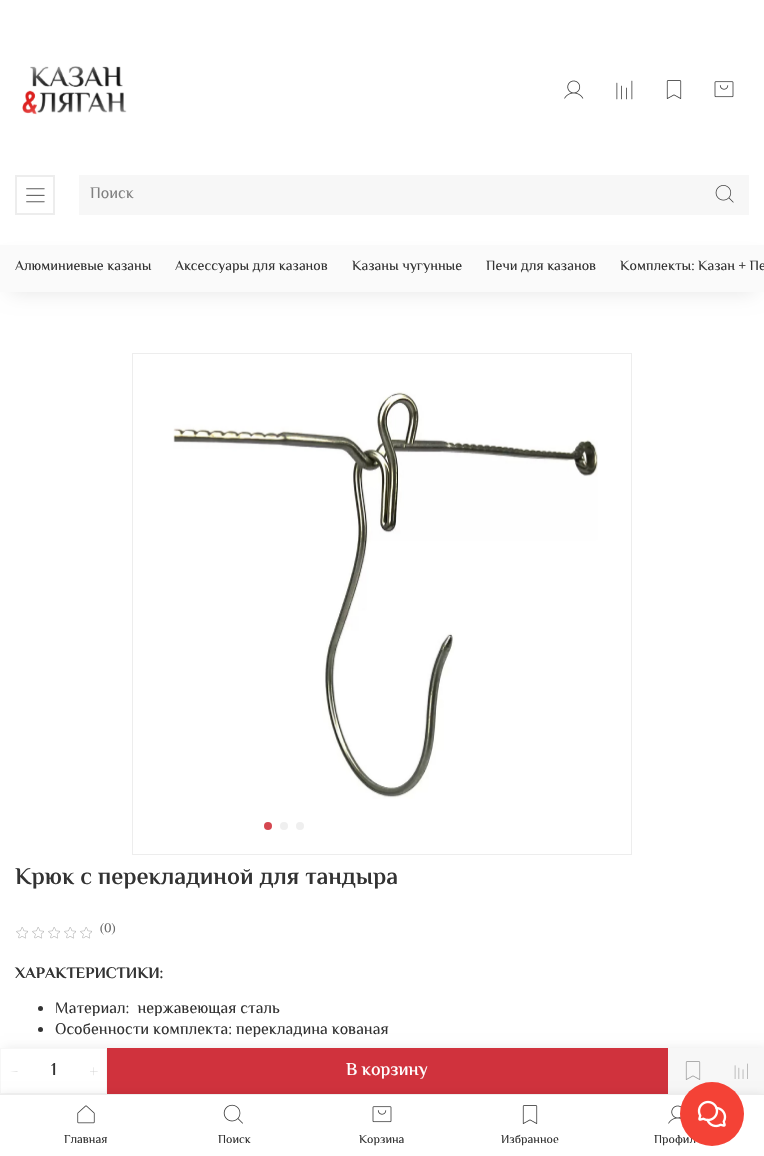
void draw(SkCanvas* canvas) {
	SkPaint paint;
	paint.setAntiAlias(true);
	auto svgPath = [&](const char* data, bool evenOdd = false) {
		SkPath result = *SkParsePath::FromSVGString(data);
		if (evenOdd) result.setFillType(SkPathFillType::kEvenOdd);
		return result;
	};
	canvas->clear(0xffffffff);
	canvas->drawImageRect(SkImages::DeferredFromEncodedData(SkData::MakeFromFileName("img1.png")), SkRect::MakeXYWH(22, 66, 105, 49), SkSamplingOptions());
	canvas->drawImageRect(SkImages::DeferredFromEncodedData(SkData::MakeFromFileName("img2.png")), SkRect::MakeXYWH(564, 80, 20, 19), SkSamplingOptions());
	canvas->drawImageRect(SkImages::DeferredFromEncodedData(SkData::MakeFromFileName("img3.png")), SkRect::MakeXYWH(616, 80, 17, 20), SkSamplingOptions());
	canvas->drawImageRect(SkImages::DeferredFromEncodedData(SkData::MakeFromFileName("img4.png")), SkRect::MakeXYWH(666, 80, 16, 19), SkSamplingOptions());
	canvas->drawImageRect(SkImages::DeferredFromEncodedData(SkData::MakeFromFileName("img5.png")), SkRect::MakeXYWH(714, 81, 20, 17), SkSamplingOptions());
	paint.setStroke(true);
	paint.setStrokeWidth(2);
	paint.setColor(0xffededed);
	canvas->drawRect(SkRect::MakeXYWH(16, 176, 38, 38), paint);
	canvas->drawImageRect(SkImages::DeferredFromEncodedData(SkData::MakeFromFileName("img6.png")), SkRect::MakeXYWH(26, 188, 19, 15), SkSamplingOptions());
	paint.setStroke(false);
	paint.setColor(0xfff7f7f7);
	canvas->drawRect(SkRect::MakeXYWH(79, 175, 670, 40), paint);
	SkFont f1(fontMgr->matchFamilyStyle("El Messiri", SkFontStyle::Normal()), 16);
	f1.setSubpixel(true);
	paint.setColor(0xff808080);
	canvas->drawString("Поиск", 90, 198, f1, paint);
	canvas->drawImageRect(SkImages::DeferredFromEncodedData(SkData::MakeFromFileName("img7.png")), SkRect::MakeXYWH(715, 185, 19, 18), SkSamplingOptions());
	paint.setColor(0x1a000000);
	paint.setMaskFilter(SkMaskFilter::MakeBlur(kNormal_SkBlurStyle, 10));
	canvas->drawRect(SkRect::MakeXYWH(10, 265, 744, 27), paint);
	paint.setMaskFilter(nullptr);
	paint.setColor(0xfffafafa);
	canvas->drawRect(SkRect::MakeXYWH(0, 245, 764, 47), paint);
	SkFont f2(fontMgr->matchFamilyStyle("El Messiri", SkFontStyle::Normal()), 14);
	f2.setSubpixel(true);
	paint.setColor(0xff333333);
	canvas->drawString("Алюминиевые казаны", 15, 270, f2, paint);
	canvas->drawString("Аксессуары для казанов", 175, 270, f2, paint);
	canvas->drawString("Казаны чугунные", 352, 270, f2, paint);
	canvas->drawString("Печи для казанов", 486, 270, f2, paint);
	canvas->drawString("Комплекты: Казан + Пе", 620, 270, f2, paint);
	paint.setStroke(true);
	paint.setStrokeWidth(1);
	paint.setColor(0xffededed);
	canvas->drawRect(SkRect::MakeXYWH(132.5, 353.5, 499, 501), paint);
	canvas->drawImageRect(SkImages::DeferredFromEncodedData(SkData::MakeFromFileName("img8.png")), SkRect::MakeXYWH(173, 391, 425, 408), SkSamplingOptions());
	paint.setStroke(false);
	paint.setColor(0xffd54750);
	canvas->drawCircle(268, 826, 4, paint);
	paint.setColor(0xffefefef);
	canvas->drawCircle(284, 826, 4, paint);
	canvas->drawCircle(300, 826, 4, paint);
	SkFont f3(fontMgr->matchFamilyStyle("El Messiri", SkFontStyle(600, SkFontStyle::kNormal_Width, SkFontStyle::kUpright_Slant)), 24);
	f3.setSubpixel(true);
	paint.setColor(0xff333333);
	canvas->drawString("Крюк с перекладиной для тандыра", 15, 884, f3, paint);
	canvas->drawImageRect(SkImages::DeferredFromEncodedData(SkData::MakeFromFileName("img9.png")), SkRect::MakeXYWH(16, 927, 12, 12), SkSamplingOptions());
	canvas->drawImageRect(SkImages::DeferredFromEncodedData(SkData::MakeFromFileName("img9.png")), SkRect::MakeXYWH(32, 927, 12, 12), SkSamplingOptions());
	canvas->drawImageRect(SkImages::DeferredFromEncodedData(SkData::MakeFromFileName("img9.png")), SkRect::MakeXYWH(48, 927, 12, 12), SkSamplingOptions());
	canvas->drawImageRect(SkImages::DeferredFromEncodedData(SkData::MakeFromFileName("img9.png")), SkRect::MakeXYWH(64, 927, 12, 12), SkSamplingOptions());
	canvas->drawImageRect(SkImages::DeferredFromEncodedData(SkData::MakeFromFileName("img9.png")), SkRect::MakeXYWH(80, 927, 12, 12), SkSamplingOptions());
	SkFont f4(fontMgr->matchFamilyStyle("El Messiri", SkFontStyle::Normal()), 13);
	f4.setSubpixel(true);
	paint.setColor(0xff6b6b6b);
	canvas->drawString("(0)", 100, 932, f4, paint);
	SkFont f5(fontMgr->matchFamilyStyle("El Messiri", SkFontStyle::Bold()), 16);
	f5.setSubpixel(true);
	paint.setColor(0xff333333);
	canvas->drawString("ХАРАКТЕРИСТИКИ:", 15, 978, f5, paint);
	canvas->drawCircle(40.5, 1008.5, 2.5, paint);
	canvas->drawString("Материал:  нержавеющая сталь", 55, 1013, f1, paint);
	canvas->drawCircle(40.5, 1029.5, 2.5, paint);
	canvas->drawString("Особенности комплекта: перекладина кованая", 55, 1034, f1, paint);
	paint.setColor(0x14000000);
	paint.setMaskFilter(SkMaskFilter::MakeBlur(kNormal_SkBlurStyle, 5));
	canvas->drawRect(SkRect::MakeXYWH(4, 1048, 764, 46), paint);
	paint.setMaskFilter(nullptr);
	paint.setColor(0xffffffff);
	canvas->drawRect(SkRect::MakeXYWH(0.5, 1048.5, 106, 45), paint);
	paint.setStroke(true);
	paint.setColor(0xfff7f7f7);
	canvas->drawRect(SkRect::MakeXYWH(0.5, 1048.5, 106, 45), paint);
	paint.setStroke(false);
	paint.setColor(0xffc2c2c2);
	canvas->drawPath(svgPath("M17.5 1071.5L10 1071H17.5Z"), paint);
	SkFont f6(fontMgr->matchFamilyStyle("El Messiri", SkFontStyle(500, SkFontStyle::kNormal_Width, SkFontStyle::kUpright_Slant)), 18);
	f6.setSubpixel(true);
	paint.setColor(0xff333333);
	canvas->drawString("1", 51, 1075, f6, paint);
	canvas->drawImageRect(SkImages::DeferredFromEncodedData(SkData::MakeFromFileName("img10.png")), SkRect::MakeXYWH(90, 1067, 8, 9), SkSamplingOptions());
	paint.setColor(0xffd0323d);
	canvas->drawRect(SkRect::MakeXYWH(107, 1048, 561, 46), paint);
	paint.setColor(0xffffffff);
	canvas->drawString("В корзину", 346, 1075, f6, paint);
	paint.setColor(0xfff7f7f7);
	canvas->drawRect(SkRect::MakeXYWH(668, 1048, 96, 46), paint);
	canvas->drawImageRect(SkImages::DeferredFromEncodedData(SkData::MakeFromFileName("img11.png")), SkRect::MakeXYWH(685, 1061, 16, 19), SkSamplingOptions());
	canvas->drawImageRect(SkImages::DeferredFromEncodedData(SkData::MakeFromFileName("img12.png")), SkRect::MakeXYWH(734, 1063, 14, 16), SkSamplingOptions());
	paint.setColor(0x1f000000);
	paint.setMaskFilter(SkMaskFilter::MakeBlur(kNormal_SkBlurStyle, 5));
	canvas->drawRect(SkRect::MakeXYWH(0, 1096, 764, 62), paint);
	paint.setMaskFilter(nullptr);
	paint.setColor(0xffffffff);
	canvas->drawRect(SkRect::MakeXYWH(0, 1095, 764, 61), paint);
	paint.setColor(0xffededed);
	canvas->drawRect(SkRect::MakeXYWH(0, 1094, 764, 1), paint);
	canvas->drawImageRect(SkImages::DeferredFromEncodedData(SkData::MakeFromFileName("img13.png")), SkRect::MakeXYWH(77, 1105, 18, 19), SkSamplingOptions());
	SkFont f7(fontMgr->matchFamilyStyle("El Messiri", SkFontStyle::Normal()), 12);
	f7.setSubpixel(true);
	paint.setColor(0xff333333);
	canvas->drawString("Главная", 64, 1143, f7, paint);
	canvas->drawImageRect(SkImages::DeferredFromEncodedData(SkData::MakeFromFileName("img14.png")), SkRect::MakeXYWH(223, 1104, 20, 20), SkSamplingOptions());
	canvas->drawString("Поиск", 218, 1143, f7, paint);
	canvas->drawImageRect(SkImages::DeferredFromEncodedData(SkData::MakeFromFileName("img5.png")), SkRect::MakeXYWH(372, 1106, 20, 17), SkSamplingOptions());
	canvas->drawString("Корзина", 359, 1143, f7, paint);
	canvas->drawImageRect(SkImages::DeferredFromEncodedData(SkData::MakeFromFileName("img4.png")), SkRect::MakeXYWH(522, 1105, 16, 19), SkSamplingOptions());
	canvas->drawString("Избранное", 501, 1143, f7, paint);
	canvas->drawImageRect(SkImages::DeferredFromEncodedData(SkData::MakeFromFileName("img15.png")), SkRect::MakeXYWH(668, 1105, 13, 19), SkSamplingOptions());
	canvas->drawString("Профил", 654, 1143, f7, paint);
	paint.setColor(0xfff44236);
	canvas->drawCircle(712, 1114, 32, paint);
	canvas->drawImageRect(SkImages::DeferredFromEncodedData(SkData::MakeFromFileName("img16.png")), SkRect::MakeXYWH(697, 1100, 30, 28), SkSamplingOptions());
}
